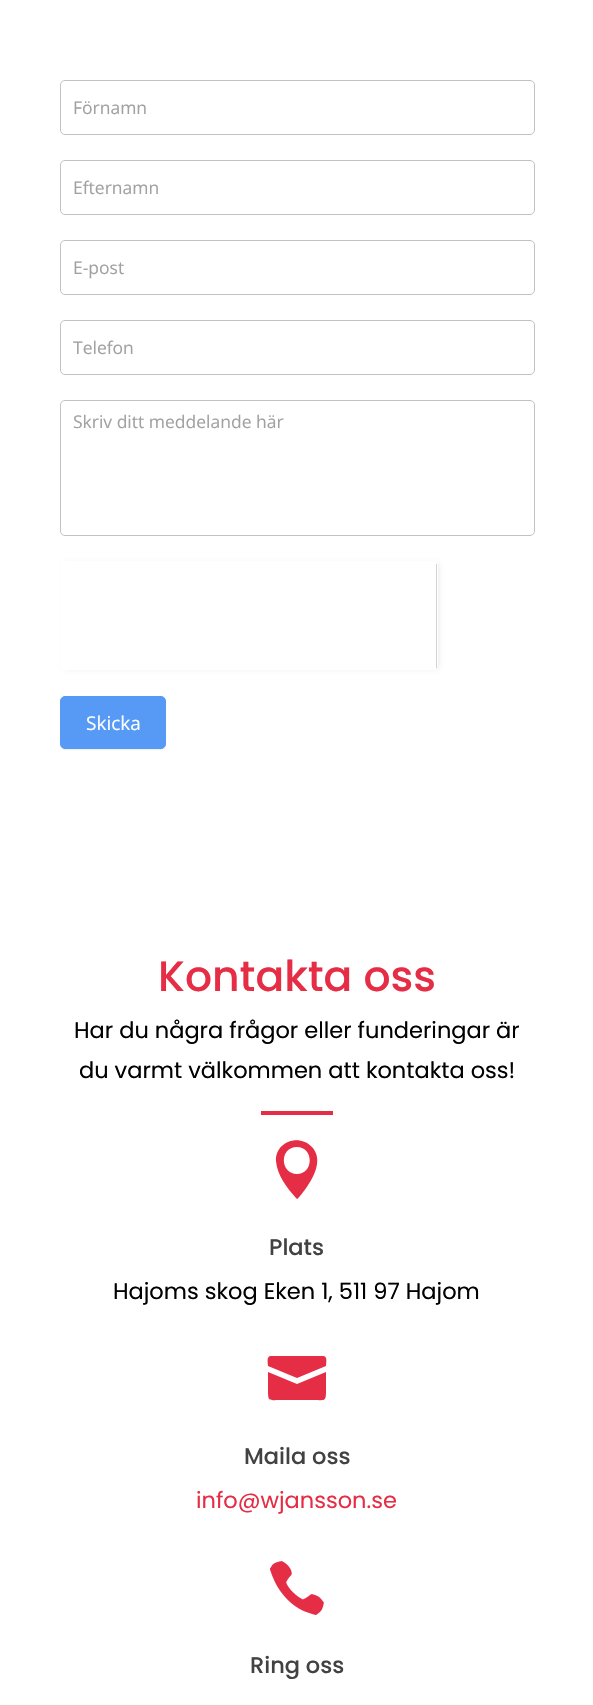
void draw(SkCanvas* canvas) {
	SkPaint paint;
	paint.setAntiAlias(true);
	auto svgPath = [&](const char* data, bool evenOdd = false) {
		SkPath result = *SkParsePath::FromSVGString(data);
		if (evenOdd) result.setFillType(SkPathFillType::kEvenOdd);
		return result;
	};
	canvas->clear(0xffffffff);
	paint.setStroke(true);
	paint.setStrokeWidth(1);
	paint.setColor(0xffbfc3c8);
	canvas->drawRoundRect(SkRect::MakeXYWH(60.5, 80.5, 474, 54), 4.5, 4.5, paint);
	SkFont f1(fontMgr->matchFamilyStyle("Open Sans", SkFontStyle::Normal()), 17.5);
	f1.setSubpixel(true);
	paint.setStroke(false);
	paint.setColor(0xffa1a1a1);
	canvas->drawString("Förnamn", 73, 114, f1, paint);
	paint.setStroke(true);
	paint.setColor(0xffbfc3c8);
	canvas->drawRoundRect(SkRect::MakeXYWH(60.5, 160.5, 474, 54), 4.5, 4.5, paint);
	paint.setStroke(false);
	paint.setColor(0xffa1a1a1);
	canvas->drawString("Efternamn", 73, 194, f1, paint);
	paint.setStroke(true);
	paint.setColor(0xffbfc3c8);
	canvas->drawRoundRect(SkRect::MakeXYWH(60.5, 240.5, 474, 54), 4.5, 4.5, paint);
	paint.setStroke(false);
	paint.setColor(0xffa1a1a1);
	canvas->drawString("E-post", 73, 274, f1, paint);
	paint.setStroke(true);
	paint.setColor(0xffbfc3c8);
	canvas->drawRoundRect(SkRect::MakeXYWH(60.5, 320.5, 474, 54), 4.5, 4.5, paint);
	paint.setStroke(false);
	paint.setColor(0xffa1a1a1);
	canvas->drawString("Telefon", 73, 354, f1, paint);
	paint.setStroke(true);
	paint.setColor(0xffbfc3c8);
	canvas->drawRoundRect(SkRect::MakeXYWH(60.5, 400.5, 474, 135), 4.5, 4.5, paint);
	paint.setStroke(false);
	paint.setColor(0xffa1a1a1);
	canvas->drawString("Skriv ditt meddelande här", 73, 428, f1, paint);
	canvas->save();
	canvas->clipPath(svgPath("M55 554H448V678H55ZM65 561H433C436 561 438 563 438 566V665C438 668 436 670 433 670H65C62 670 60 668 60 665V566C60 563 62 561 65 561Z", true), true);
	paint.setColor(0x14000000);
	paint.setMaskFilter(SkMaskFilter::MakeBlur(kNormal_SkBlurStyle, 2.5));
	canvas->drawRoundRect(SkRect::MakeXYWH(64, 563, 375, 106), 4, 4, paint);
	paint.setMaskFilter(nullptr);
	canvas->restore();
	paint.setColor(0xffd3d3d3);
	canvas->drawRect(SkRect::MakeXYWH(436, 564, 1, 104), paint);
	paint.setColor(0xffeeeeee);
	paint.setMaskFilter(SkMaskFilter::MakeBlur(kNormal_SkBlurStyle, 0.5));
	canvas->drawRoundRect(SkRect::MakeXYWH(60, 698, 106, 52), 5, 5, paint);
	paint.setMaskFilter(nullptr);
	paint.setColor(0xff579af6);
	canvas->drawRoundRect(SkRect::MakeXYWH(60.5, 696.5, 105, 52), 4.5, 4.5, paint);
	paint.setStroke(true);
	canvas->drawRoundRect(SkRect::MakeXYWH(60.5, 696.5, 105, 52), 4.5, 4.5, paint);
	SkFont f2(fontMgr->matchFamilyStyle("Open Sans", SkFontStyle::Normal()), 19);
	f2.setSubpixel(true);
	paint.setStroke(false);
	paint.setColor(0xffffffff);
	canvas->drawString("Skicka", 86, 730, f2, paint);
	SkFont f3(fontMgr->matchFamilyStyle("Poppins", SkFontStyle(500, SkFontStyle::kNormal_Width, SkFontStyle::kUpright_Slant)), 42.5);
	f3.setSubpixel(true);
	paint.setColor(0xffe52d45);
	canvas->drawString("Kontakta oss", 158, 991, f3, paint);
	SkFont f4(fontMgr->matchFamilyStyle("Poppins", SkFontStyle::Normal()), 22.5);
	f4.setSubpixel(true);
	paint.setColor(0xff000000);
	canvas->drawString("Har du några frågor eller funderingar är", 74, 1038, f4, paint);
	canvas->drawString("du varmt välkommen att kontakta oss!", 79, 1078, f4, paint);
	paint.setColor(0xffe52d45);
	canvas->drawRect(SkRect::MakeXYWH(261, 1111, 72, 4), paint);
	canvas->drawPath(svgPath("M296 1198L297 1199C299 1198 303 1192 304 1191C313 1179 324 1160 312 1147C299 1133 275 1142 276 1161C277 1175 287 1188 296 1198ZM297 1147C314 1147 314 1174 297 1174C280 1174 279 1147 297 1147Z"), paint);
	SkFont f5(fontMgr->matchFamilyStyle("Poppins", SkFontStyle(500, SkFontStyle::kNormal_Width, SkFontStyle::kUpright_Slant)), 22.5);
	f5.setSubpixel(true);
	paint.setColor(0xff424242);
	canvas->drawString("Plats", 269, 1255, f5, paint);
	paint.setColor(0xff000000);
	canvas->drawString("Hajoms skog Eken 1, 511 97 Hajom", 113, 1299, f4, paint);
	paint.setColor(0xffe52d45);
	canvas->drawPath(svgPath("M323 1356H271C266 1356 268 1363 268 1366L297 1378L326 1366C326 1363 328 1356 323 1356ZM268 1372V1392C268 1402 270 1400 280 1400H314C324 1400 326 1402 326 1392V1372L297 1384Z"), paint);
	paint.setColor(0xff424242);
	canvas->drawString("Maila oss", 244, 1464, f5, paint);
	paint.setColor(0xffe52d45);
	canvas->drawString("info@wjansson.se", 196, 1508, f4, paint);
	canvas->drawImageRect(SkImages::DeferredFromEncodedData(SkData::MakeFromFileName("img1.png")), SkRect::MakeXYWH(270, 1561, 54, 54), SkSamplingOptions());
	paint.setColor(0xff424242);
	canvas->drawString("Ring oss", 250, 1673, f5, paint);
}
